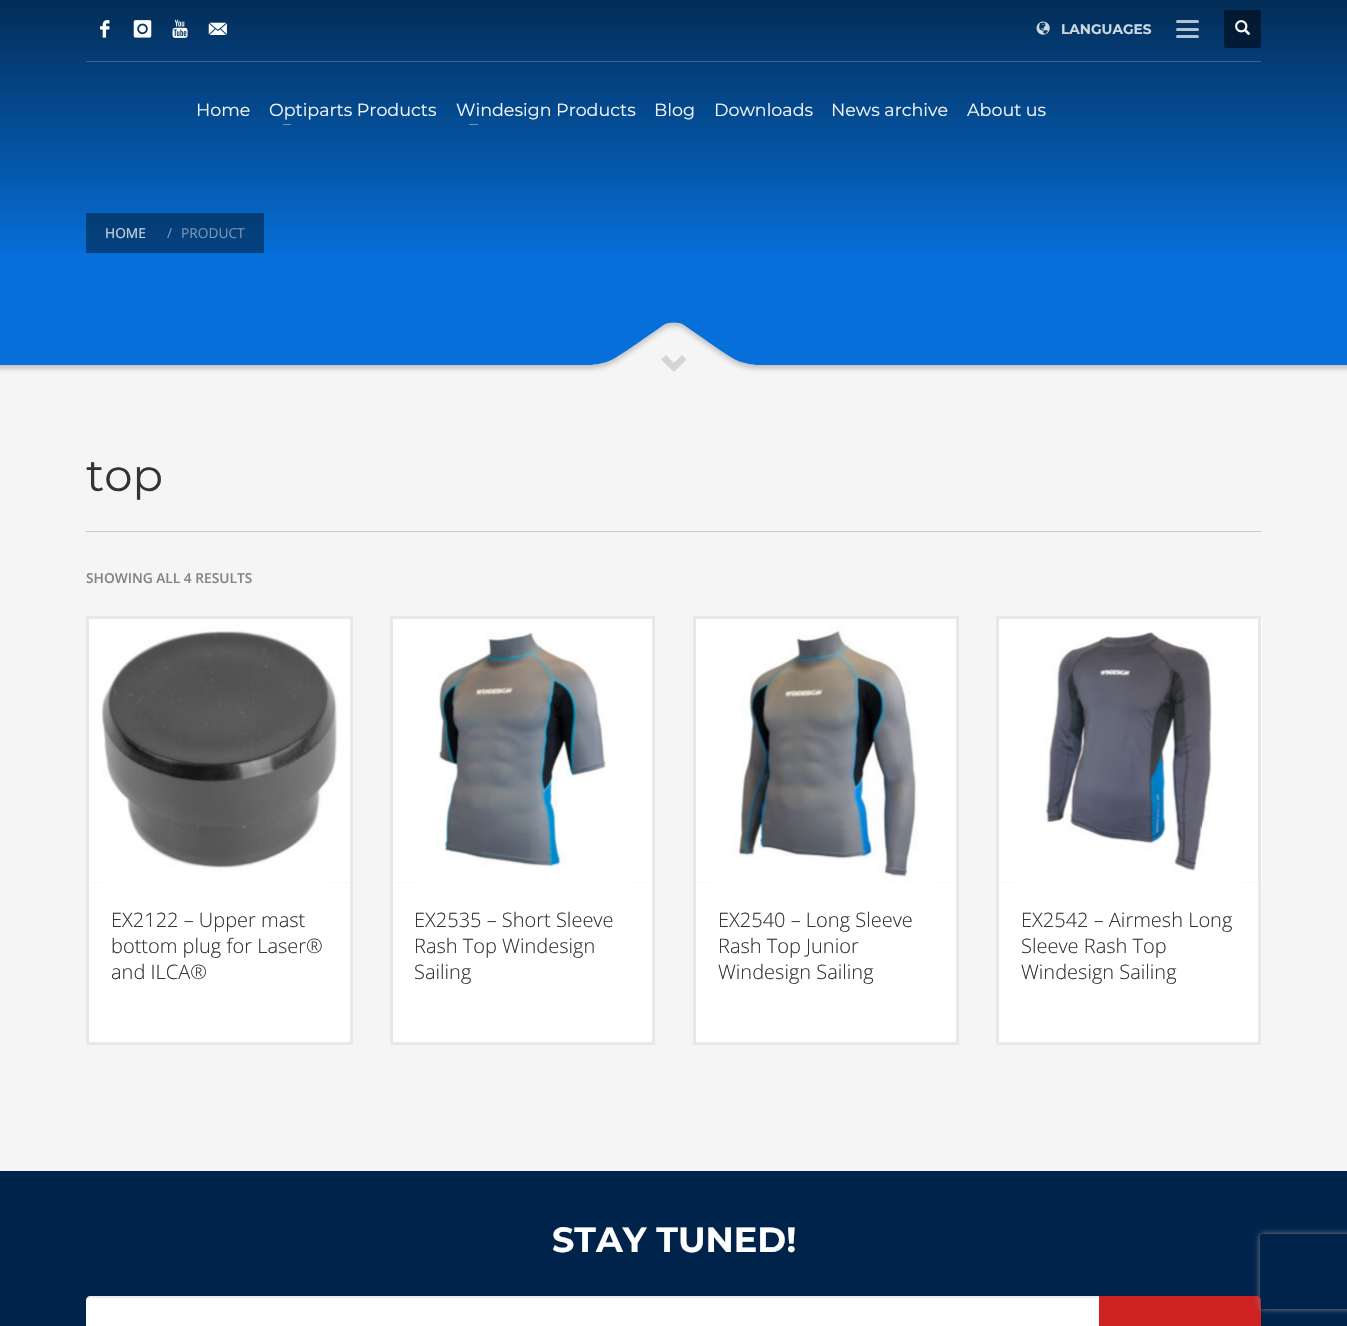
void draw(SkCanvas* canvas) {
	SkPaint paint;
	paint.setAntiAlias(true);
	auto svgPath = [&](const char* data, bool evenOdd = false) {
		SkPath result = *SkParsePath::FromSVGString(data);
		if (evenOdd) result.setFillType(SkPathFillType::kEvenOdd);
		return result;
	};
	canvas->clear(0xfff5f5f5);
	paint.setColor(0xff066fd9);
	canvas->drawRect(SkRect::MakeXYWH(0, 0, 1347, 365), paint);
	paint.setColor(0xff044382);
	canvas->drawRect(SkRect::MakeXYWH(86, 213, 178, 40), paint);
	SkFont f1(fontMgr->matchFamilyStyle("Open Sans", SkFontStyle::Normal()), 13.75);
	f1.setSubpixel(true);
	paint.setColor(0xffd9e3ec);
	canvas->drawString("HOME", 105, 238, f1, paint);
	paint.setColor(0xff82a1c1);
	canvas->drawString("/", 167, 238, f1, paint);
	canvas->drawString("PRODUCT", 181, 238, f1, paint);
	{
		const SkColor colors[] = {0x99000000, 0x00000000};
		const float stops[] = {0, 1};
		const SkPoint ends[] = {{674, 0}, {674, 259}};
		paint.setShader(SkGradientShader::MakeLinear(ends, colors, stops, 2, SkTileMode::kClamp));
		paint.setAlpha(255);
	}
	canvas->drawRect(SkRect::MakeXYWH(0, 0, 1347, 250), paint);
	canvas->drawImageRect(SkImages::DeferredFromEncodedData(SkData::MakeFromFileName("img1.png")), SkRect::MakeXYWH(100, 20, 10, 18), SkSamplingOptions());
	canvas->drawImageRect(SkImages::DeferredFromEncodedData(SkData::MakeFromFileName("img2.png")), SkRect::MakeXYWH(133, 20, 19, 18), SkSamplingOptions());
	canvas->drawImageRect(SkImages::DeferredFromEncodedData(SkData::MakeFromFileName("img3.png")), SkRect::MakeXYWH(172, 19, 16, 19), SkSamplingOptions());
	canvas->drawImageRect(SkImages::DeferredFromEncodedData(SkData::MakeFromFileName("img4.png")), SkRect::MakeXYWH(208, 22, 19, 13), SkSamplingOptions());
	canvas->drawImageRect(SkImages::DeferredFromEncodedData(SkData::MakeFromFileName("img5.png")), SkRect::MakeXYWH(1036, 21, 14, 14), SkSamplingOptions());
	SkFont f2(fontMgr->matchFamilyStyle("Montserrat", SkFontStyle::Bold()), 13.75);
	f2.setSubpixel(true);
	paint.setShader(nullptr);
	paint.setColor(0xffcdd6e0);
	canvas->drawString("LANGUAGES", 1061, 34, f2, paint);
	paint.setColor(0xffb3c3d2);
	canvas->drawRoundRect(SkRect::MakeXYWH(1176, 35, 23, 3), 1.5, 1.5, paint);
	paint.setColor(0xffb3c2d1);
	canvas->drawRoundRect(SkRect::MakeXYWH(1176, 28, 23, 3), 1.5, 1.5, paint);
	paint.setColor(0xffb3c1d0);
	canvas->drawRoundRect(SkRect::MakeXYWH(1176, 20, 23, 3), 1.5, 1.5, paint);
	paint.setColor(0x80000000);
	canvas->drawRoundRect(SkRect::MakeXYWH(1224, 10, 37, 38), 2.5, 2.5, paint);
	canvas->drawImageRect(SkImages::DeferredFromEncodedData(SkData::MakeFromFileName("img6.png")), SkRect::MakeXYWH(1235, 20, 16, 15), SkSamplingOptions());
	paint.setColor(0xff366391);
	canvas->drawRect(SkRect::MakeXYWH(86, 61, 1175, 1), paint);
	SkFont f3(fontMgr->matchFamilyStyle("Montserrat", SkFontStyle::Normal()), 17.5);
	f3.setSubpixel(true);
	paint.setColor(0xfff5f5f5);
	canvas->drawString("Home", 196, 116, f3, paint);
	canvas->drawString("Optiparts Products", 269, 116, f3, paint);
	paint.setColor(0xff6894c0);
	canvas->drawRect(SkRect::MakeXYWH(283, 124, 8, 1), paint);
	paint.setColor(0xfff5f5f5);
	canvas->drawString("Windesign Products", 456, 116, f3, paint);
	paint.setColor(0xff6894c0);
	canvas->drawRect(SkRect::MakeXYWH(469, 124, 9, 1), paint);
	paint.setColor(0xfff5f5f5);
	canvas->drawString("Blog", 654, 116, f3, paint);
	canvas->drawString("Downloads", 714, 116, f3, paint);
	canvas->drawString("News archive", 831, 116, f3, paint);
	canvas->drawString("About us", 967, 116, f3, paint);
	canvas->drawImageRect(SkImages::DeferredFromEncodedData(SkData::MakeFromFileName("img7.png")), SkRect::MakeXYWH(0, 322, 1347, 53), SkSamplingOptions());
	paint.setColor(0xffd5d5d5);
	canvas->drawPath(svgPath("M686.5 359.5L674 372L661 359.5L666 355L674 363L682 355Z"), paint);
	paint.setColor(0xffcbcbcb);
	canvas->drawRect(SkRect::MakeXYWH(86, 531, 1175, 1), paint);
	SkFont f4(fontMgr->matchFamilyStyle("Montserrat", SkFontStyle::Normal()), 45);
	f4.setSubpixel(true);
	paint.setColor(0xff343434);
	canvas->drawString("top", 86, 491, f4, paint);
	SkFont f5(fontMgr->matchFamilyStyle("Open Sans", SkFontStyle(600, SkFontStyle::kNormal_Width, SkFontStyle::kUpright_Slant)), 13.75);
	f5.setSubpixel(true);
	paint.setColor(0xff838383);
	canvas->drawString("SHOWING ALL 4 RESULTS", 86, 583, f5, paint);
	{
		const SkColor colors[] = {0xffffffff, 0xffffffff, 0xffededed};
		const float stops[] = {0, 0.5, 1};
		SkMatrix m = SkMatrix::Translate(219, 831).preScale(188, 303);
		paint.setShader(SkGradientShader::MakeRadial({0, 0}, 1, colors, stops, 3, SkTileMode::kClamp, 0, &m));
		paint.setAlpha(255);
	}
	canvas->drawRect(SkRect::MakeXYWH(89, 882, 261, 1), paint);
	canvas->drawImageRect(SkImages::DeferredFromEncodedData(SkData::MakeFromFileName("img8.png")), SkRect::MakeXYWH(89, 619, 261, 263), SkSamplingOptions());
	paint.setShader(nullptr);
	paint.setColor(0xffffffff);
	canvas->drawRect(SkRect::MakeXYWH(89, 883, 261, 159), paint);
	paint.setStroke(true);
	paint.setStrokeWidth(3);
	paint.setColor(0xffe8e8e8);
	canvas->drawRect(SkRect::MakeXYWH(87.5, 617.5, 264, 426), paint);
	SkFont f6(fontMgr->matchFamilyStyle("Open Sans", SkFontStyle(300, SkFontStyle::kNormal_Width, SkFontStyle::kUpright_Slant)), 20);
	f6.setSubpixel(true);
	paint.setStroke(false);
	paint.setColor(0xff343434);
	canvas->drawString("EX2122 – Upper mast", 111, 927, f6, paint);
	canvas->drawString("bottom plug for Laser®", 111, 953, f6, paint);
	canvas->drawString("and ILCA®", 111, 979, f6, paint);
	{
		const SkColor colors[] = {0xffffffff, 0xffffffff, 0xffededed};
		const float stops[] = {0, 0.5, 1};
		SkMatrix m = SkMatrix::Translate(523, 831).preScale(187, 303);
		paint.setShader(SkGradientShader::MakeRadial({0, 0}, 1, colors, stops, 3, SkTileMode::kClamp, 0, &m));
		paint.setAlpha(255);
	}
	canvas->drawRect(SkRect::MakeXYWH(393, 882, 259, 1), paint);
	canvas->drawImageRect(SkImages::DeferredFromEncodedData(SkData::MakeFromFileName("img9.png")), SkRect::MakeXYWH(393, 619, 259, 263), SkSamplingOptions());
	paint.setShader(nullptr);
	paint.setColor(0xffffffff);
	canvas->drawRect(SkRect::MakeXYWH(393, 883, 259, 159), paint);
	paint.setStroke(true);
	paint.setColor(0xffe8e8e8);
	canvas->drawRect(SkRect::MakeXYWH(391.5, 617.5, 262, 426), paint);
	paint.setStroke(false);
	paint.setColor(0xff343434);
	canvas->drawString("EX2535 – Short Sleeve", 414, 927, f6, paint);
	canvas->drawString("Rash Top Windesign", 414, 953, f6, paint);
	canvas->drawString("Sailing", 414, 979, f6, paint);
	{
		const SkColor colors[] = {0xffffffff, 0xffffffff, 0xffededed};
		const float stops[] = {0, 0.5, 1};
		SkMatrix m = SkMatrix::Translate(826, 831).preScale(188, 303);
		paint.setShader(SkGradientShader::MakeRadial({0, 0}, 1, colors, stops, 3, SkTileMode::kClamp, 0, &m));
		paint.setAlpha(255);
	}
	canvas->drawRect(SkRect::MakeXYWH(696, 882, 260, 1), paint);
	canvas->drawImageRect(SkImages::DeferredFromEncodedData(SkData::MakeFromFileName("img10.png")), SkRect::MakeXYWH(696, 619, 260, 263), SkSamplingOptions());
	paint.setShader(nullptr);
	paint.setColor(0xffffffff);
	canvas->drawRect(SkRect::MakeXYWH(696, 883, 260, 159), paint);
	paint.setStroke(true);
	paint.setColor(0xffe8e8e8);
	canvas->drawRect(SkRect::MakeXYWH(694.5, 617.5, 263, 426), paint);
	paint.setStroke(false);
	paint.setColor(0xff343434);
	canvas->drawString("EX2540 – Long Sleeve", 718, 927, f6, paint);
	canvas->drawString("Rash Top Junior", 718, 953, f6, paint);
	canvas->drawString("Windesign Sailing", 718, 979, f6, paint);
	{
		const SkColor colors[] = {0xffffffff, 0xffffffff, 0xffededed};
		const float stops[] = {0, 0.5, 1};
		SkMatrix m = SkMatrix::Translate(1129, 831).preScale(187, 303);
		paint.setShader(SkGradientShader::MakeRadial({0, 0}, 1, colors, stops, 3, SkTileMode::kClamp, 0, &m));
		paint.setAlpha(255);
	}
	canvas->drawRect(SkRect::MakeXYWH(999, 882, 259, 1), paint);
	canvas->drawImageRect(SkImages::DeferredFromEncodedData(SkData::MakeFromFileName("img11.png")), SkRect::MakeXYWH(999, 616, 263, 266), SkSamplingOptions());
	paint.setShader(nullptr);
	paint.setColor(0xffffffff);
	canvas->drawRect(SkRect::MakeXYWH(999, 883, 259, 159), paint);
	paint.setStroke(true);
	paint.setColor(0xffe8e8e8);
	canvas->drawRect(SkRect::MakeXYWH(997.5, 617.5, 262, 426), paint);
	paint.setStroke(false);
	paint.setColor(0xff343434);
	canvas->drawString("EX2542 – Airmesh Long", 1021, 927, f6, paint);
	canvas->drawString("Sleeve Rash Top", 1021, 953, f6, paint);
	canvas->drawString("Windesign Sailing", 1021, 979, f6, paint);
	paint.setColor(0xff00234c);
	canvas->drawRect(SkRect::MakeXYWH(0, 1171, 1347, 155), paint);
	SkFont f7(fontMgr->matchFamilyStyle("Montserrat", SkFontStyle::Bold()), 35);
	f7.setSubpixel(true);
	paint.setColor(0xffffffff);
	canvas->drawString("STAY TUNED!", 552, 1252, f7, paint);
	canvas->drawPath(svgPath("M90 1296H1099V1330H90C88 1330 86 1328 86 1326V1300C86 1298 88 1296 90 1296Z"), paint);
	paint.setColor(0x12000000);
	canvas->drawPath(svgPath("M90 1298H1099V1296H90C87 1296 86 1298 86 1301C86 1299 88 1298 90 1298Z"), paint);
	paint.setColor(0xffcd2122);
	canvas->drawPath(svgPath("M1099 1296H1256C1259 1296 1261 1298 1261 1301V1326C1261 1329 1259 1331 1256 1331H1099Z"), paint);
	canvas->save();
	canvas->clipPath(svgPath("M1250 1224H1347V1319H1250ZM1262.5 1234H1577.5C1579 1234 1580 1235 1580 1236.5V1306.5C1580 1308 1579 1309 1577.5 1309H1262.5C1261 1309 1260 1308 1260 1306.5V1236.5C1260 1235 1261 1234 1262.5 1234Z", true), true);
	paint.setColor(0xff808080);
	paint.setMaskFilter(SkMaskFilter::MakeBlur(kNormal_SkBlurStyle, 3));
	canvas->drawRoundRect(SkRect::MakeXYWH(1260, 1234, 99, 75), 2.5, 2.5, paint);
	paint.setMaskFilter(nullptr);
	canvas->restore();
}
